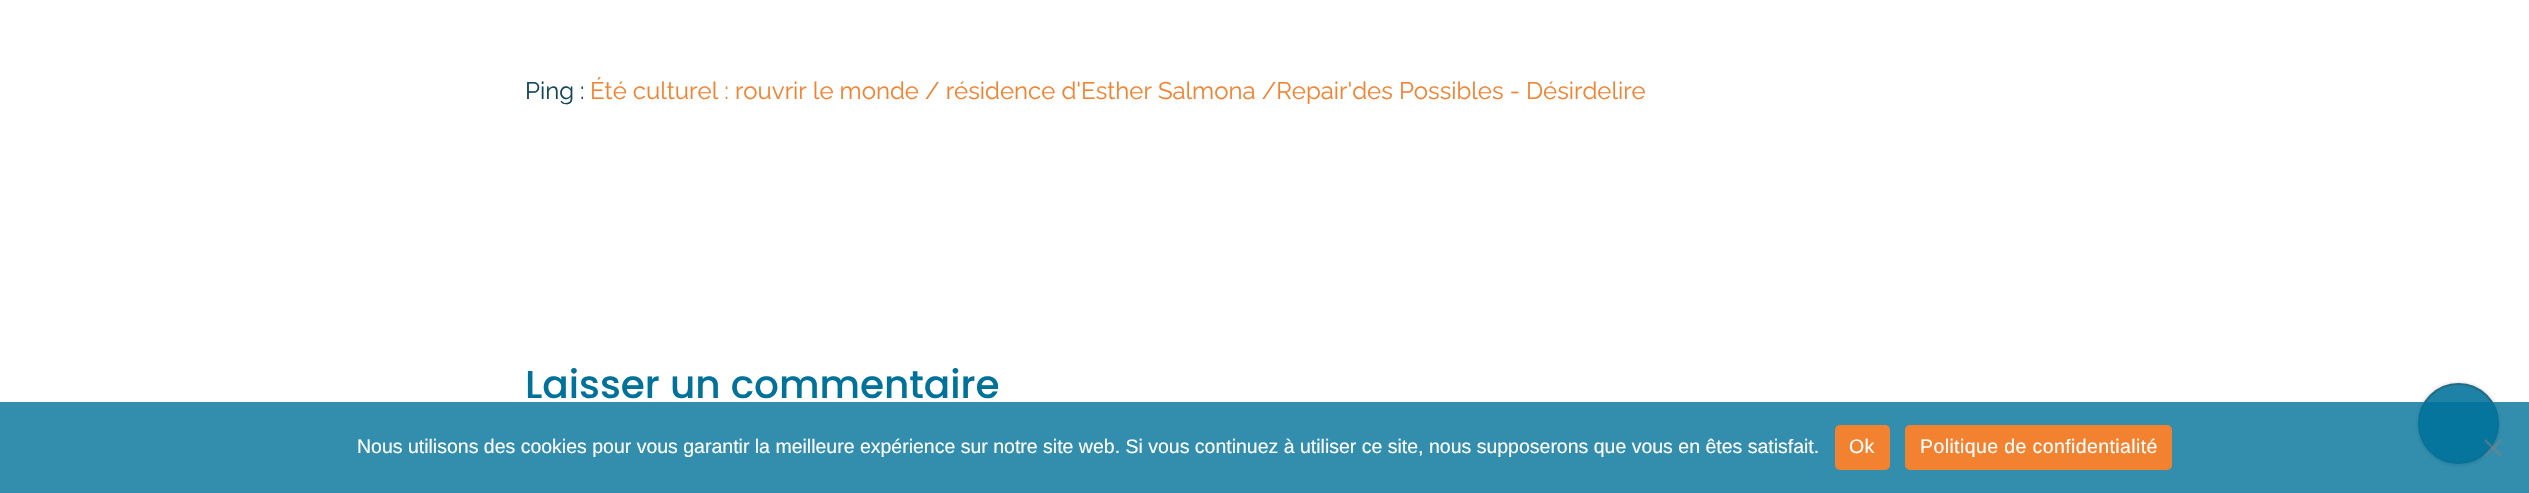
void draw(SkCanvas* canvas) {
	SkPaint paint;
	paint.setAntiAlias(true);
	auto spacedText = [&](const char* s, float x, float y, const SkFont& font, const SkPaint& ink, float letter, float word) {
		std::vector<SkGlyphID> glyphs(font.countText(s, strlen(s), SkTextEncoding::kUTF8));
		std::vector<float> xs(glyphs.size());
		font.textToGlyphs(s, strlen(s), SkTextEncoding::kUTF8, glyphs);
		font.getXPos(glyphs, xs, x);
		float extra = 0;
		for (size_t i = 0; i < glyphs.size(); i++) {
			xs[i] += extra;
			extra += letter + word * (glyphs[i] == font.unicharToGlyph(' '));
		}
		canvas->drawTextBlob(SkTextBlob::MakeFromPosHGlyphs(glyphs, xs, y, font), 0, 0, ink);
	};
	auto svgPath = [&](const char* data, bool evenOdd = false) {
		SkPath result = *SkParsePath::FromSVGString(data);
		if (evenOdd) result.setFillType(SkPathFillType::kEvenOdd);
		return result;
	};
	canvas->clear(0xffffffff);
	SkFont f1(fontMgr->matchFamilyStyle("Raleway", SkFontStyle(100, SkFontStyle::kNormal_Width, SkFontStyle::kUpright_Slant)), 24);
	f1.setSubpixel(true);
	paint.setColor(0xff134457);
	canvas->drawString("Ping :", 525, 99, f1, paint);
	paint.setColor(0xfff38230);
	canvas->drawString("Été culturel : rouvrir le monde / résidence d'Esther Salmona /Repair'des Possibles - Désirdelire", 590, 99, f1, paint);
	SkFont f2(fontMgr->matchFamilyStyle("Poppins", SkFontStyle(500, SkFontStyle::kNormal_Width, SkFontStyle::kUpright_Slant)), 39);
	f2.setSubpixel(true);
	paint.setColor(0xff00729a);
	canvas->drawString("Laisser un commentaire", 525, 398, f2, paint);
	paint.setColor(0x661d1d1d);
	paint.setMaskFilter(SkMaskFilter::MakeBlur(kNormal_SkBlurStyle, 2));
	canvas->drawRoundRect(SkRect::MakeXYWH(2418, 384, 81, 81), 40.5, 40.5, paint);
	paint.setMaskFilter(nullptr);
	paint.setColor(0xff1d82a6);
	canvas->drawCircle(2458.5, 423.5, 39.5, paint);
	paint.setStroke(true);
	paint.setStrokeWidth(2);
	paint.setColor(0xff216b85);
	canvas->drawCircle(2458.5, 423.5, 39.5, paint);
	paint.setStroke(false);
	paint.setColor(0xcc00729a);
	canvas->drawRect(SkRect::MakeXYWH(0, 402, 2529, 91), paint);
	SkFont f3(fontMgr->matchFamilyStyle("Liberation Sans", SkFontStyle::Normal()), 19.5);
	f3.setSubpixel(true);
	paint.setColor(0xffffffff);
	canvas->drawString("Nous utilisons des cookies pour vous garantir la meilleure expérience sur notre site web. Si vous continuez à utiliser ce site, nous supposerons que vous en êtes satisfait.", 357, 453, f3, paint);
	paint.setColor(0xfff38230);
	canvas->drawRoundRect(SkRect::MakeXYWH(1835, 425, 55, 45), 5, 5, paint);
	paint.setColor(0xffffffff);
	spacedText("Ok", 1849, 453, f3, paint, 0.4, 0);
	paint.setColor(0xfff38230);
	canvas->drawRoundRect(SkRect::MakeXYWH(1905, 425, 267, 45), 5, 5, paint);
	paint.setColor(0xffffffff);
	spacedText("Politique de confidentialité", 1920, 453, f3, paint, 0.4, 0);
	paint.setColor(0x80808080);
	canvas->drawPath(svgPath("M2500 439L2502 441L2486 457L2484 455Z"), paint);
	canvas->drawPath(svgPath("M2484 441L2486 439L2502 455L2500 457Z"), paint);
}
